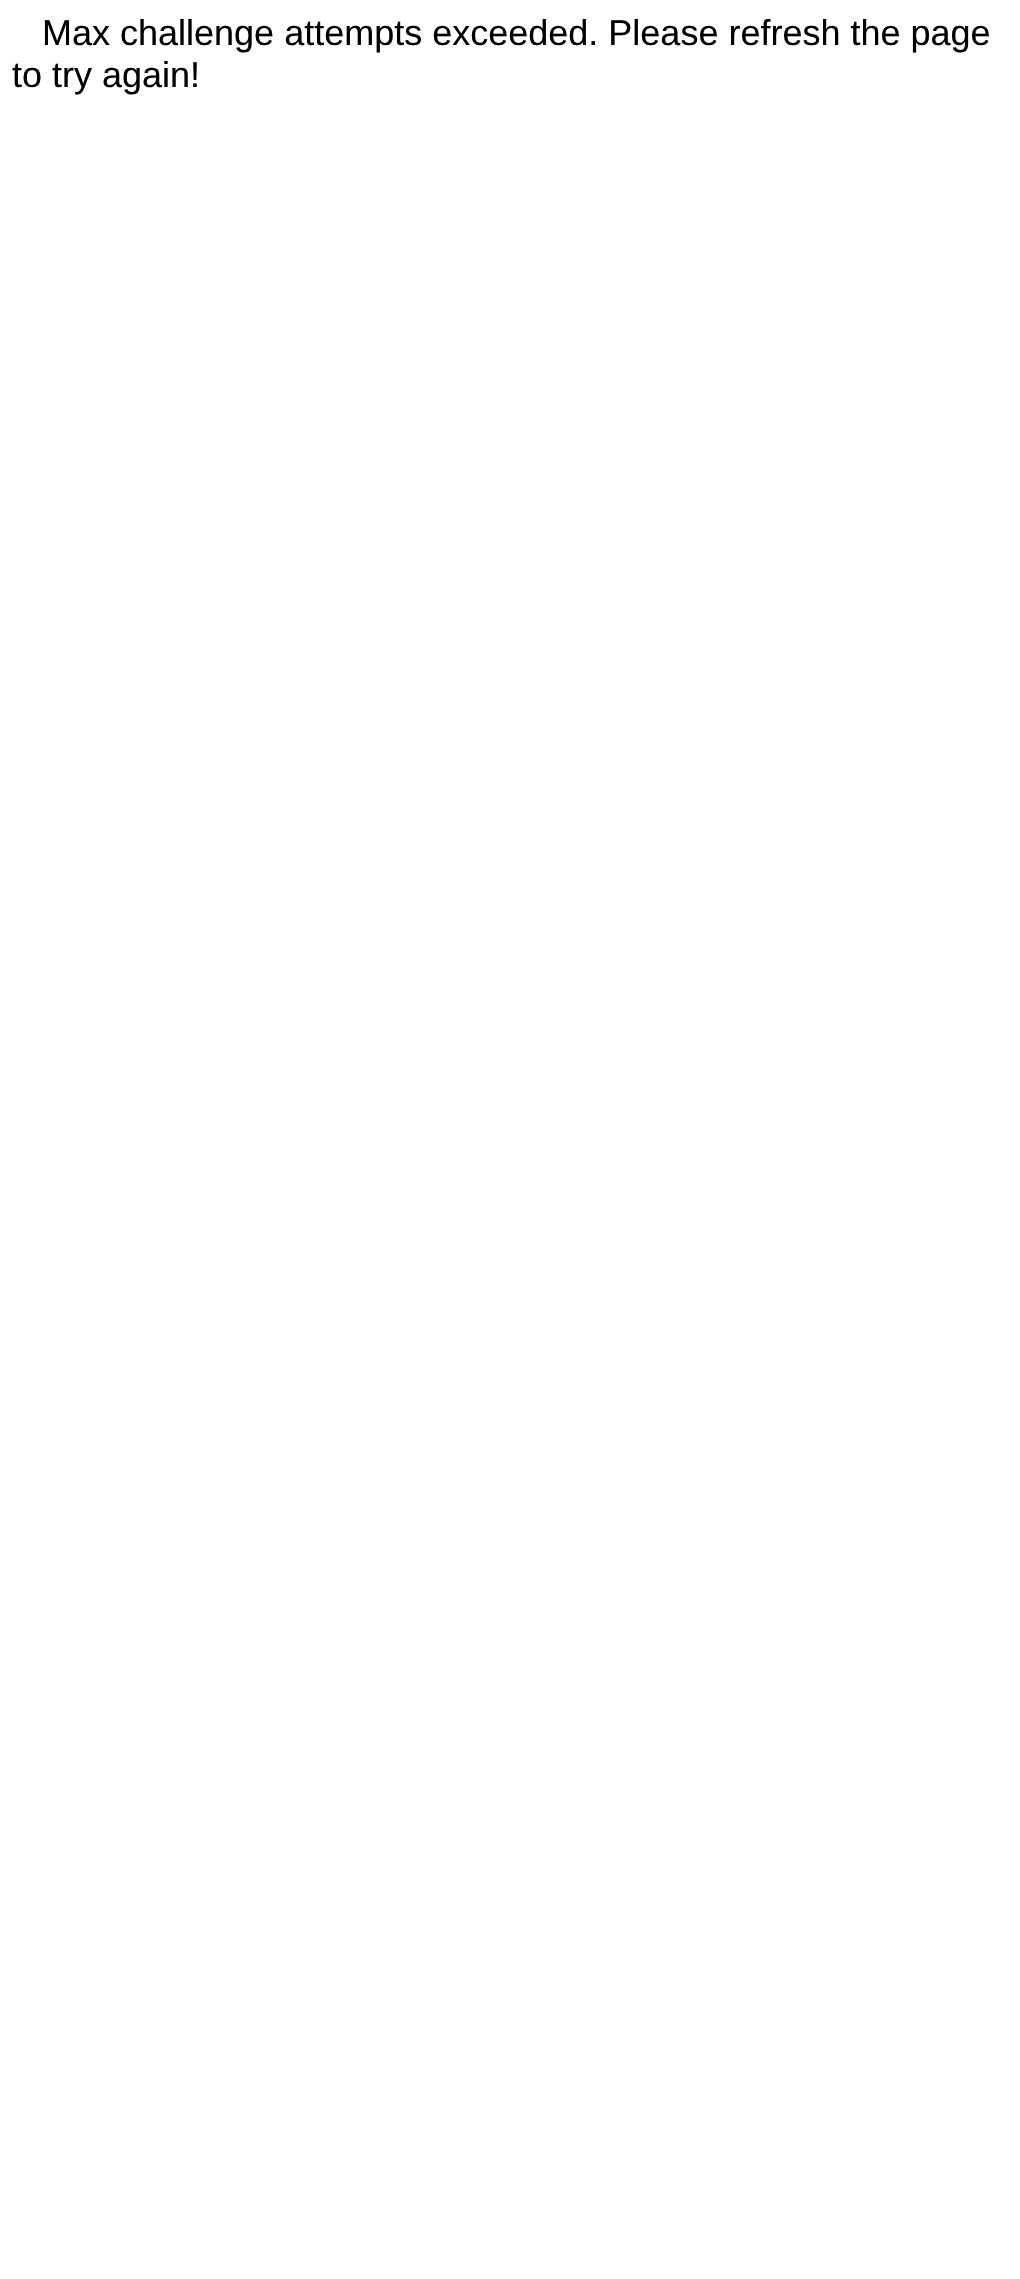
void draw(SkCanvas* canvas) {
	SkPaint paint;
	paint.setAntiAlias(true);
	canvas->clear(0xffffffff);
	SkFont f1(fontMgr->matchFamilyStyle("Liberation Sans", SkFontStyle::Normal()), 36);
	f1.setSubpixel(true);
	paint.setColor(0xff000000);
	canvas->drawString("Max challenge attempts exceeded. Please refresh the page", 42, 45, f1, paint);
	canvas->drawString("to try again!", 12, 87, f1, paint);
}
